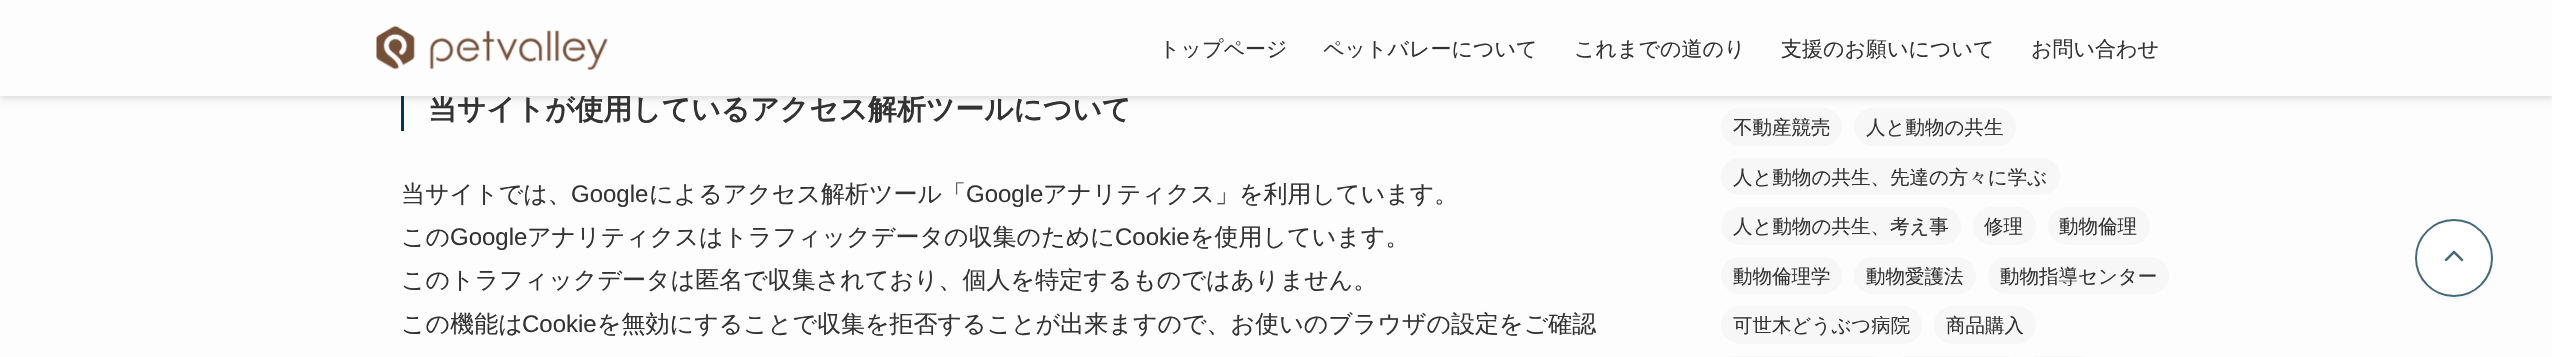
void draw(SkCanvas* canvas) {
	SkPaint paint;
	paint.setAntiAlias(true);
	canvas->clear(0xfffdfdfd);
	paint.setColor(0xff04384c);
	canvas->drawRect(SkRect::MakeXYWH(401, 90, 3, 41), paint);
	paint.setColor(0xfff7f7f7);
	canvas->drawRoundRect(SkRect::MakeXYWH(1721, 108, 121, 38), 19, 19, paint);
	canvas->drawRoundRect(SkRect::MakeXYWH(1854, 108, 162, 38), 19, 19, paint);
	paint.setColor(0x1f000000);
	paint.setMaskFilter(SkMaskFilter::MakeBlur(kNormal_SkBlurStyle, 3));
	canvas->drawRect(SkRect::MakeXYWH(0, 3, 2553, 96), paint);
	paint.setMaskFilter(nullptr);
	SkFont f1(fontMgr->matchFamilyStyle("WenQuanYi Zen Hei", SkFontStyle::Bold()), 28.8);
	f1.setSubpixel(true);
	paint.setColor(0xff333333);
	canvas->drawString("当サイトが使用しているアクセス解析ツールについて", 428, 119, f1, paint);
	paint.setColor(0xfffdfdfd);
	canvas->drawRect(SkRect::MakeXYWH(0, 0, 2552, 96), paint);
	canvas->drawImageRect(SkImages::DeferredFromEncodedData(SkData::MakeFromFileName("img1.png")), SkRect::MakeXYWH(376, 25, 232, 46), SkSamplingOptions());
	SkFont f2(fontMgr->matchFamilyStyle("WenQuanYi Zen Hei", SkFontStyle(500, SkFontStyle::kNormal_Width, SkFontStyle::kUpright_Slant)), 21);
	f2.setSubpixel(true);
	paint.setColor(0xff333333);
	canvas->drawString("トップページ", 1159, 56, f2, paint);
	canvas->drawString("ペットバレーについて", 1323, 56, f2, paint);
	canvas->drawString("これまでの道のり", 1574, 56, f2, paint);
	canvas->drawString("支援のお願いについて", 1781, 56, f2, paint);
	canvas->drawString("お問い合わせ", 2031, 56, f2, paint);
	SkFont f3(fontMgr->matchFamilyStyle("WenQuanYi Zen Hei", SkFontStyle(500, SkFontStyle::kNormal_Width, SkFontStyle::kUpright_Slant)), 24);
	f3.setSubpixel(true);
	canvas->drawString("当サイトでは、", 401, 202, f3, paint);
	SkFont f4(fontMgr->matchFamilyStyle("Liberation Sans", SkFontStyle::Normal()), 24);
	f4.setSubpixel(true);
	canvas->drawString("Google", 571, 202, f4, paint);
	canvas->drawString("によるアクセス解析ツール「", 649, 202, f3, paint);
	canvas->drawString("Google", 966, 202, f4, paint);
	canvas->drawString("アナリティクス」を利用しています。", 1043, 202, f3, paint);
	canvas->drawString("この", 401, 245, f3, paint);
	canvas->drawString("Google", 450, 245, f4, paint);
	canvas->drawString("アナリティクスはトラフィックデータの収集のために", 527, 245, f3, paint);
	canvas->drawString("Cookie", 1115, 245, f4, paint);
	canvas->drawString("を使用しています。", 1190, 245, f3, paint);
	canvas->drawString("このトラフィックデータは匿名で収集されており、個人を特定するものではありません。", 401, 288, f3, paint);
	canvas->drawString("この機能は", 401, 332, f3, paint);
	canvas->drawString("Cookie", 522, 332, f4, paint);
	canvas->drawString("を無効にすることで収集を拒否することが出来ますので、お使いのブラウザの設定をご確認", 597, 332, f3, paint);
	SkFont f5(fontMgr->matchFamilyStyle("WenQuanYi Zen Hei", SkFontStyle(500, SkFontStyle::kNormal_Width, SkFontStyle::kUpright_Slant)), 19.5);
	f5.setSubpixel(true);
	canvas->drawString("不動産競売", 1733, 134, f5, paint);
	canvas->drawString("人と動物の共生", 1866, 134, f5, paint);
	paint.setColor(0xfff7f7f7);
	canvas->drawRoundRect(SkRect::MakeXYWH(1721, 158, 339, 37), 18.5, 18.5, paint);
	paint.setColor(0xff333333);
	canvas->drawString("人と動物の共生、先達の方々に学ぶ", 1733, 184, f5, paint);
	paint.setColor(0xfff7f7f7);
	canvas->drawRoundRect(SkRect::MakeXYWH(1721, 207, 240, 38), 19, 19, paint);
	paint.setColor(0xff333333);
	canvas->drawString("人と動物の共生、考え事", 1733, 233, f5, paint);
	paint.setColor(0xfff7f7f7);
	canvas->drawRoundRect(SkRect::MakeXYWH(1973, 207, 63, 38), 19, 19, paint);
	paint.setColor(0xff333333);
	canvas->drawString("修理", 1984, 233, f5, paint);
	paint.setColor(0xfff7f7f7);
	canvas->drawRoundRect(SkRect::MakeXYWH(2048, 207, 102, 38), 19, 19, paint);
	paint.setColor(0xff333333);
	canvas->drawString("動物倫理", 2059, 233, f5, paint);
	paint.setColor(0xfff7f7f7);
	canvas->drawRoundRect(SkRect::MakeXYWH(1721, 257, 121, 37), 18.5, 18.5, paint);
	paint.setColor(0xff333333);
	canvas->drawString("動物倫理学", 1733, 283, f5, paint);
	paint.setColor(0xfff7f7f7);
	canvas->drawRoundRect(SkRect::MakeXYWH(1854, 257, 122, 37), 18.5, 18.5, paint);
	paint.setColor(0xff333333);
	canvas->drawString("動物愛護法", 1866, 283, f5, paint);
	paint.setColor(0xfff7f7f7);
	canvas->drawRoundRect(SkRect::MakeXYWH(1988, 257, 181, 37), 18.5, 18.5, paint);
	paint.setColor(0xff333333);
	canvas->drawString("動物指導センター", 2000, 283, f5, paint);
	paint.setColor(0xfff7f7f7);
	canvas->drawRoundRect(SkRect::MakeXYWH(1721, 306, 201, 38), 19, 19, paint);
	paint.setColor(0xff333333);
	canvas->drawString("可世木どうぶつ病院", 1733, 332, f5, paint);
	paint.setColor(0xfff7f7f7);
	canvas->drawRoundRect(SkRect::MakeXYWH(1934, 306, 102, 38), 19, 19, paint);
	paint.setColor(0xff333333);
	canvas->drawString("商品購入", 1946, 332, f5, paint);
	paint.setColor(0xfff7f7f7);
	canvas->drawRoundRect(SkRect::MakeXYWH(1721, 356, 162, 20), 18.5, 18.5, paint);
	canvas->drawRoundRect(SkRect::MakeXYWH(1895, 356, 121, 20), 18.5, 18.5, paint);
	canvas->drawRoundRect(SkRect::MakeXYWH(2028, 356, 63, 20), 18.5, 18.5, paint);
	paint.setColor(0x1a3f3f3f);
	paint.setMaskFilter(SkMaskFilter::MakeBlur(kNormal_SkBlurStyle, 3));
	canvas->drawRoundRect(SkRect::MakeXYWH(2421, 231, 66, 66), 33, 33, paint);
	paint.setMaskFilter(nullptr);
	paint.setColor(0xffffffff);
	canvas->drawCircle(2454, 258, 38, paint);
	paint.setStroke(true);
	paint.setStrokeWidth(2);
	paint.setColor(0xff426978);
	canvas->drawCircle(2454, 258, 38, paint);
	canvas->drawImageRect(SkImages::DeferredFromEncodedData(SkData::MakeFromFileName("img2.png")), SkRect::MakeXYWH(2444, 250, 20, 12), SkSamplingOptions());
}
